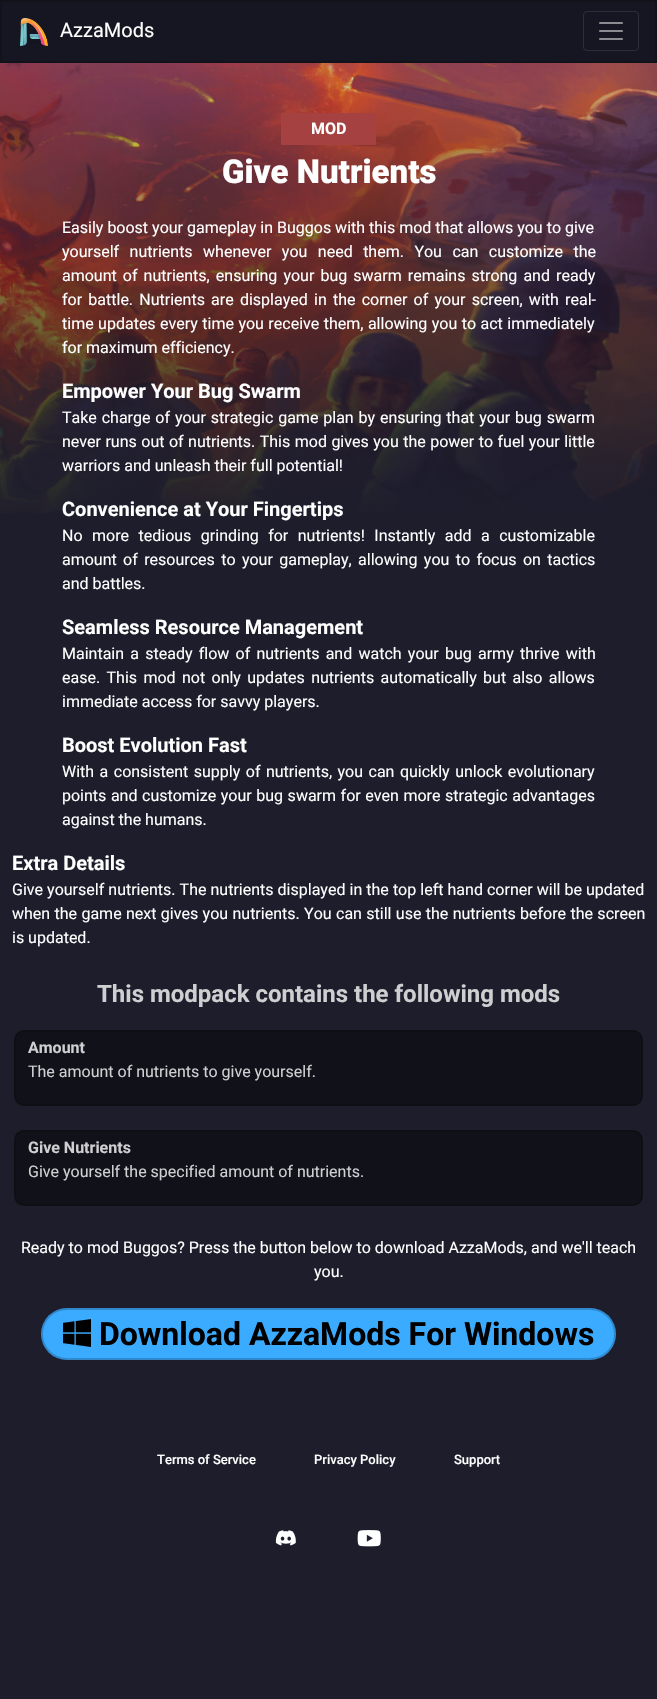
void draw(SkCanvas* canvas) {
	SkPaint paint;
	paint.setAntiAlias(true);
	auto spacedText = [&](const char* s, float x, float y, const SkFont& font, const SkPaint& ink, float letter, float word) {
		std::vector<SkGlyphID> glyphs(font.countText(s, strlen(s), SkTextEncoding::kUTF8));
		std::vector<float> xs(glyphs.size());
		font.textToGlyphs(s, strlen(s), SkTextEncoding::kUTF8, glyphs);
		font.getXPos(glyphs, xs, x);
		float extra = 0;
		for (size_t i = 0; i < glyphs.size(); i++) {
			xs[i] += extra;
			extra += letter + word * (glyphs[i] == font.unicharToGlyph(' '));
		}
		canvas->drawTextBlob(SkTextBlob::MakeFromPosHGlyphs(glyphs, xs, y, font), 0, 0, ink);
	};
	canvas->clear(0xff1d1d2c);
	paint.setColor(0xff161622);
	canvas->drawRect(SkRect::MakeXYWH(1, 1, 655, 61), paint);
	paint.setStroke(true);
	paint.setStrokeWidth(2);
	paint.setColor(0xff12121b);
	canvas->drawRect(SkRect::MakeXYWH(1, 1, 655, 61), paint);
	canvas->drawImageRect(SkImages::DeferredFromEncodedData(SkData::MakeFromFileName("img1.png")), SkRect::MakeXYWH(20, 18, 28, 28), SkSamplingOptions());
	SkFont f1(fontMgr->matchFamilyStyle("Roboto", SkFontStyle::Normal()), 20);
	f1.setSubpixel(true);
	paint.setStroke(false);
	paint.setColor(0xffffffff);
	canvas->drawString("AzzaMods", 60, 37, f1, paint);
	paint.setStroke(true);
	paint.setStrokeWidth(1);
	paint.setColor(0xff2d2d38);
	canvas->drawRoundRect(SkRect::MakeXYWH(583.5, 11.5, 55, 39), 3.5, 3.5, paint);
	canvas->drawImageRect(SkImages::DeferredFromEncodedData(SkData::MakeFromFileName("img2.png")), SkRect::MakeXYWH(599, 22, 24, 18), SkSamplingOptions());
	canvas->drawImageRect(SkImages::DeferredFromEncodedData(SkData::MakeFromFileName("img3.png")), SkRect::MakeXYWH(0, 63, 657, 450), SkSamplingOptions());
	paint.setStroke(false);
	paint.setColor(0xffa54141);
	canvas->drawRect(SkRect::MakeXYWH(281, 113, 95, 32), paint);
	SkFont f2(fontMgr->matchFamilyStyle("Roboto", SkFontStyle::Bold()), 16);
	f2.setSubpixel(true);
	paint.setColor(0xffffffff);
	canvas->drawString("MOD", 311, 134, f2, paint);
	SkFont f3(fontMgr->matchFamilyStyle("Roboto", SkFontStyle(900, SkFontStyle::kNormal_Width, SkFontStyle::kUpright_Slant)), 33);
	f3.setSubpixel(true);
	canvas->drawString("Give Nutrients", 222, 183, f3, paint);
	SkFont f4(fontMgr->matchFamilyStyle("Roboto", SkFontStyle::Normal()), 16);
	f4.setSubpixel(true);
	canvas->drawString("Easily boost your gameplay in Buggos with this mod that allows you to give", 62, 233, f4, paint);
	spacedText("yourself nutrients whenever you need them. You can customize the", 62, 257, f4, paint, 0, 6.5);
	spacedText("amount of nutrients, ensuring your bug swarm remains strong and ready", 62, 281, f4, paint, 0, 2.1);
	spacedText("for battle. Nutrients are displayed in the corner of your screen, with real-", 62, 305, f4, paint, 0, 2.25);
	spacedText("time updates every time you receive them, allowing you to act immediately", 62, 329, f4, paint, 0, 0.5);
	canvas->drawString("for maximum efficiency.", 62, 353, f4, paint);
	SkFont f5(fontMgr->matchFamilyStyle("Roboto", SkFontStyle::Bold()), 20);
	f5.setSubpixel(true);
	canvas->drawString("Empower Your Bug Swarm", 62, 398, f5, paint);
	spacedText("Take charge of your strategic game plan by ensuring that your bug swarm", 62, 423, f4, paint, 0, 0.9);
	spacedText("never runs out of nutrients. This mod gives you the power to fuel your little", 62, 447, f4, paint, 0, 0.5);
	canvas->drawString("warriors and unleash their full potential!", 62, 471, f4, paint);
	canvas->drawString("Convenience at Your Fingertips", 62, 516, f5, paint);
	spacedText("No more tedious grinding for nutrients! Instantly add a customizable", 62, 541, f4, paint, 0, 5.5);
	spacedText("amount of resources to your gameplay, allowing you to focus on tactics", 62, 565, f4, paint, 0, 2.4);
	canvas->drawString("and battles.", 62, 589, f4, paint);
	canvas->drawString("Seamless Resource Management", 62, 634, f5, paint);
	spacedText("Maintain a steady flow of nutrients and watch your bug army thrive with", 62, 659, f4, paint, 0, 2.25);
	spacedText("ease. This mod not only updates nutrients automatically but also allows", 62, 683, f4, paint, 0, 2.4);
	canvas->drawString("immediate access for savvy players.", 62, 707, f4, paint);
	canvas->drawString("Boost Evolution Fast", 62, 752, f5, paint);
	spacedText("With a consistent supply of nutrients, you can quickly unlock evolutionary", 62, 777, f4, paint, 0, 1.5);
	spacedText("points and customize your bug swarm for even more strategic advantages", 62, 801, f4, paint, 0, 0.6);
	canvas->drawString("against the humans.", 62, 825, f4, paint);
	canvas->drawString("Extra Details", 12, 870, f5, paint);
	spacedText("Give yourself nutrients. The nutrients displayed in the top left hand corner will be updated", 12, 895, f4, paint, 0, 0.1);
	spacedText("when the game next gives you nutrients. You can still use the nutrients before the screen", 12, 919, f4, paint, 0, 0.4);
	canvas->drawString("is updated.", 12, 943, f4, paint);
	SkFont f6(fontMgr->matchFamilyStyle("Roboto", SkFontStyle::Bold()), 24);
	f6.setSubpixel(true);
	paint.setColor(0xffcfcfd1);
	canvas->drawString("This modpack contains the following mods", 97, 1002, f6, paint);
	paint.setColor(0xff11111a);
	canvas->drawRoundRect(SkRect::MakeXYWH(14, 1030, 629, 76), 10, 10, paint);
	paint.setStroke(true);
	paint.setStrokeWidth(2);
	paint.setColor(0x33000000);
	canvas->drawRoundRect(SkRect::MakeXYWH(15, 1031, 627, 74), 9, 9, paint);
	paint.setStroke(false);
	paint.setColor(0xffcfcfd1);
	canvas->drawString("Amount", 28, 1053, f2, paint);
	canvas->drawString("The amount of nutrients to give yourself.", 28, 1077, f4, paint);
	paint.setColor(0xff11111a);
	canvas->drawRoundRect(SkRect::MakeXYWH(14, 1130, 629, 76), 10, 10, paint);
	paint.setStroke(true);
	paint.setColor(0x33000000);
	canvas->drawRoundRect(SkRect::MakeXYWH(15, 1131, 627, 74), 9, 9, paint);
	paint.setStroke(false);
	paint.setColor(0xffcfcfd1);
	canvas->drawString("Give Nutrients", 28, 1153, f2, paint);
	canvas->drawString("Give yourself the specified amount of nutrients.", 28, 1177, f4, paint);
	paint.setColor(0xffffffff);
	canvas->drawString("Ready to mod Buggos? Press the button below to download AzzaMods, and we'll teach", 21, 1253, f4, paint);
	canvas->drawString("you.", 314, 1277, f4, paint);
	paint.setColor(0xff3babff);
	canvas->drawRoundRect(SkRect::MakeXYWH(41, 1308, 575, 52), 26, 26, paint);
	paint.setStroke(true);
	paint.setColor(0x33000000);
	canvas->drawRoundRect(SkRect::MakeXYWH(42, 1309, 573, 50), 25, 25, paint);
	canvas->drawImageRect(SkImages::DeferredFromEncodedData(SkData::MakeFromFileName("img4.png")), SkRect::MakeXYWH(63, 1319, 28, 28), SkSamplingOptions());
	SkFont f7(fontMgr->matchFamilyStyle("Roboto", SkFontStyle::Bold()), 32);
	f7.setSubpixel(true);
	paint.setStroke(false);
	paint.setColor(0xff000000);
	canvas->drawString("Download AzzaMods For Windows", 99, 1345, f7, paint);
	SkFont f8(fontMgr->matchFamilyStyle("Roboto", SkFontStyle(500, SkFontStyle::kNormal_Width, SkFontStyle::kUpright_Slant)), 13);
	f8.setSubpixel(true);
	paint.setColor(0xffffffff);
	canvas->drawString("Terms of Service", 157, 1464, f8, paint);
	canvas->drawString("Privacy Policy", 314, 1464, f8, paint);
	canvas->drawString("Support", 454, 1464, f8, paint);
	canvas->drawImageRect(SkImages::DeferredFromEncodedData(SkData::MakeFromFileName("img5.png")), SkRect::MakeXYWH(275, 1530, 21, 16), SkSamplingOptions());
	canvas->drawImageRect(SkImages::DeferredFromEncodedData(SkData::MakeFromFileName("img6.png")), SkRect::MakeXYWH(357, 1530, 24, 17), SkSamplingOptions());
}
